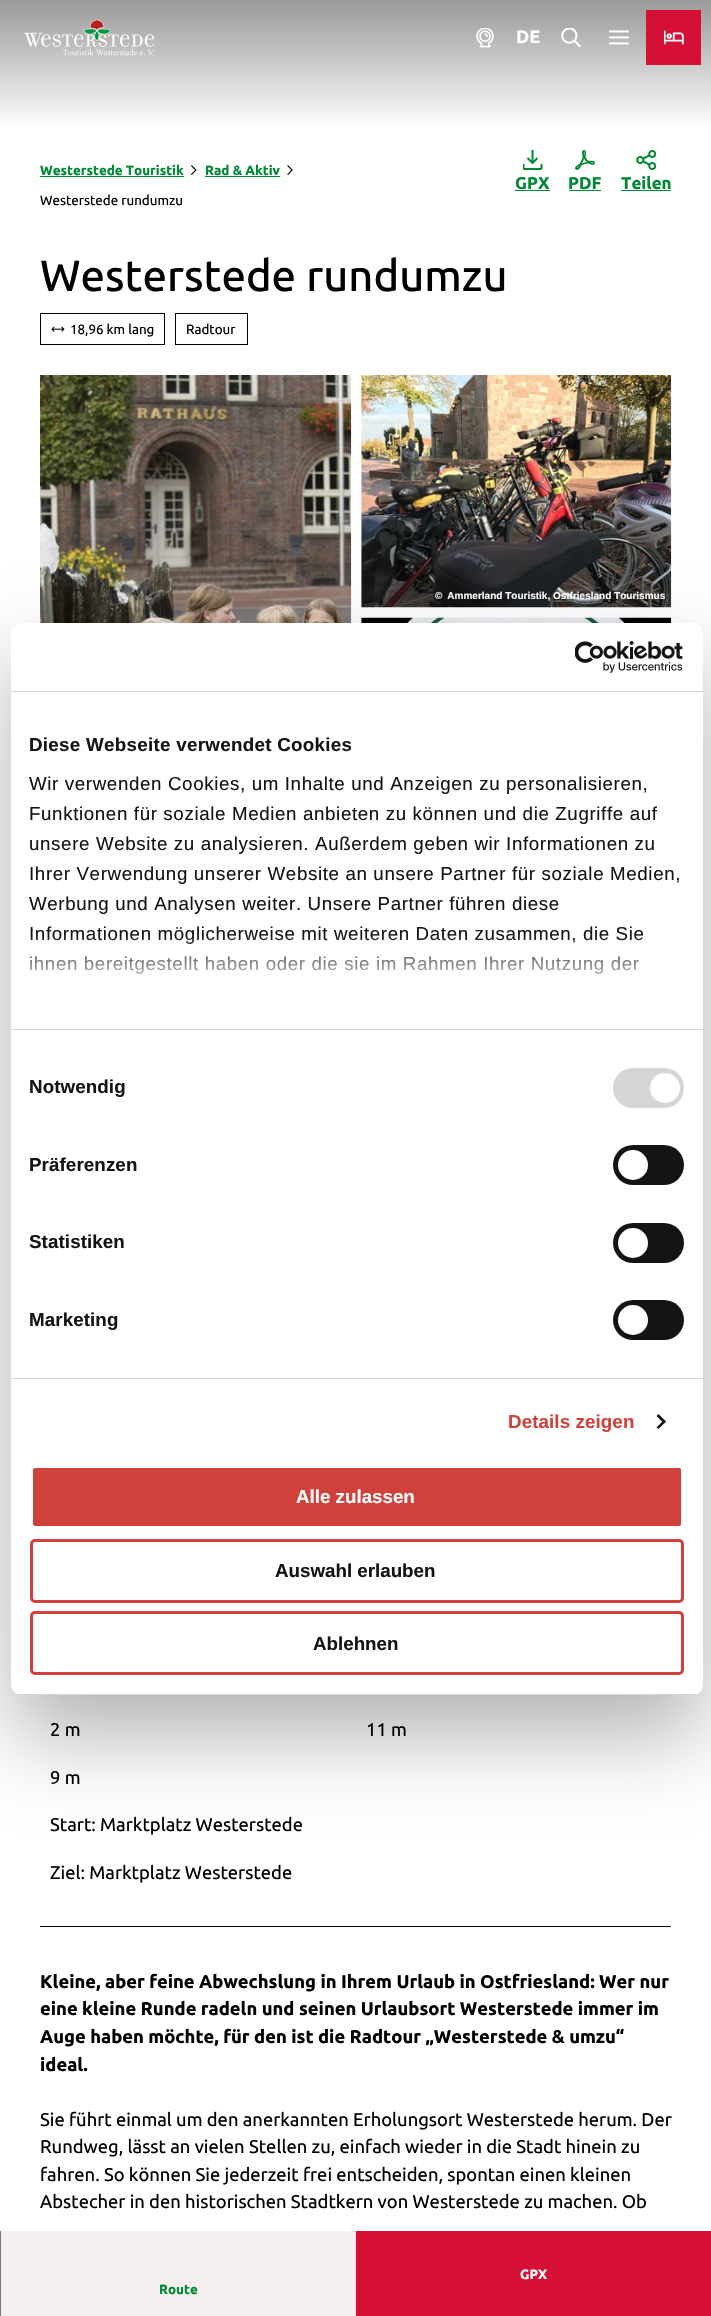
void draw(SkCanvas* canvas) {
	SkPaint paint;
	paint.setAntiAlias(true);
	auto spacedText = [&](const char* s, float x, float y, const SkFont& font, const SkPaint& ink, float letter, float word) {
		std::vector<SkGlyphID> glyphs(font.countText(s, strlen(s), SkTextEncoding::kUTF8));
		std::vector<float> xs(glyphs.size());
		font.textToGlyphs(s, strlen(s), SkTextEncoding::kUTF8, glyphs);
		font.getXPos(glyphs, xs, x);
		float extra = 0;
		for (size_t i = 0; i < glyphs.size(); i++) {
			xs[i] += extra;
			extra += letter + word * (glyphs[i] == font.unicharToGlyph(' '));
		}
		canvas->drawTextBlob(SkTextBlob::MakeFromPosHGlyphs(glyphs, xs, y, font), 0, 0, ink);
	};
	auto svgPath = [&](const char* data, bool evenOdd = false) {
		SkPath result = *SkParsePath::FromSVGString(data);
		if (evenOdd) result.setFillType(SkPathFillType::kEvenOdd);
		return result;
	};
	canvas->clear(0xffffffff);
	{
		const SkColor colors[] = {0xff999999, 0xffffffff};
		const float stops[] = {0, 1};
		const SkPoint ends[] = {{356, 0}, {356, 130}};
		paint.setShader(SkGradientShader::MakeLinear(ends, colors, stops, 2, SkTileMode::kClamp));
		paint.setAlpha(255);
	}
	canvas->drawRect(SkRect::MakeXYWH(0, 0, 711, 127), paint);
	canvas->drawImageRect(SkImages::DeferredFromEncodedData(SkData::MakeFromFileName("img1.png")), SkRect::MakeXYWH(23, 19, 131, 37), SkSamplingOptions());
	canvas->drawImageRect(SkImages::DeferredFromEncodedData(SkData::MakeFromFileName("img2.png")), SkRect::MakeXYWH(476, 28, 18, 20), SkSamplingOptions());
	SkFont f1(fontMgr->matchFamilyStyle("Ubuntu", SkFontStyle::Bold()), 18);
	f1.setSubpixel(true);
	paint.setShader(nullptr);
	paint.setColor(0xffffffff);
	canvas->drawString("DE", 516, 43, f1, paint);
	canvas->drawImageRect(SkImages::DeferredFromEncodedData(SkData::MakeFromFileName("img3.png")), SkRect::MakeXYWH(561, 28, 20, 20), SkSamplingOptions());
	canvas->drawImageRect(SkImages::DeferredFromEncodedData(SkData::MakeFromFileName("img4.png")), SkRect::MakeXYWH(609, 30, 20, 15), SkSamplingOptions());
	paint.setColor(0xffd50f35);
	canvas->drawRect(SkRect::MakeXYWH(646, 10, 55, 55), paint);
	canvas->drawImageRect(SkImages::DeferredFromEncodedData(SkData::MakeFromFileName("img5.png")), SkRect::MakeXYWH(664, 30, 20, 15), SkSamplingOptions());
	SkFont f2(fontMgr->matchFamilyStyle("Ubuntu", SkFontStyle::Bold()), 13.4);
	f2.setSubpixel(true);
	paint.setColor(0xff008835);
	canvas->drawString("Westerstede Touristik", 40, 175, f2, paint);
	canvas->drawRect(SkRect::MakeXYWH(40, 176, 144, 1), paint);
	canvas->drawImageRect(SkImages::DeferredFromEncodedData(SkData::MakeFromFileName("img6.png")), SkRect::MakeXYWH(191, 165, 6, 10), SkSamplingOptions());
	canvas->drawString("Rad & Aktiv", 205, 175, f2, paint);
	canvas->drawRect(SkRect::MakeXYWH(205, 176, 75, 1), paint);
	canvas->drawImageRect(SkImages::DeferredFromEncodedData(SkData::MakeFromFileName("img7.png")), SkRect::MakeXYWH(287, 165, 6, 10), SkSamplingOptions());
	SkFont f3(fontMgr->matchFamilyStyle("Ubuntu", SkFontStyle::Normal()), 13.4);
	f3.setSubpixel(true);
	paint.setColor(0xff000000);
	canvas->drawString("Westerstede rundumzu", 40, 205, f3, paint);
	canvas->drawImageRect(SkImages::DeferredFromEncodedData(SkData::MakeFromFileName("img8.png")), SkRect::MakeXYWH(523, 150, 20, 20), SkSamplingOptions());
	SkFont f4(fontMgr->matchFamilyStyle("Ubuntu", SkFontStyle::Bold()), 17);
	f4.setSubpixel(true);
	paint.setColor(0xff008835);
	canvas->drawString("GPX", 515, 189, f4, paint);
	canvas->drawRect(SkRect::MakeXYWH(515, 190, 35, 1), paint);
	canvas->drawImageRect(SkImages::DeferredFromEncodedData(SkData::MakeFromFileName("img9.png")), SkRect::MakeXYWH(575, 150, 20, 20), SkSamplingOptions());
	canvas->drawString("PDF", 568, 189, f4, paint);
	canvas->drawRect(SkRect::MakeXYWH(569, 190, 32, 1), paint);
	canvas->drawImageRect(SkImages::DeferredFromEncodedData(SkData::MakeFromFileName("img10.png")), SkRect::MakeXYWH(636, 150, 20, 20), SkSamplingOptions());
	canvas->drawString("Teilen", 621, 189, f4, paint);
	canvas->drawRect(SkRect::MakeXYWH(621, 190, 50, 1), paint);
	SkFont f5(fontMgr->matchFamilyStyle("Ubuntu", SkFontStyle(500, SkFontStyle::kNormal_Width, SkFontStyle::kUpright_Slant)), 43.5);
	f5.setSubpixel(true);
	paint.setColor(0xff000000);
	canvas->drawString("Westerstede rundumzu", 40, 291, f5, paint);
	paint.setStroke(true);
	paint.setStrokeWidth(1);
	canvas->drawRect(SkRect::MakeXYWH(40.5, 313.5, 124, 31), paint);
	canvas->drawImageRect(SkImages::DeferredFromEncodedData(SkData::MakeFromFileName("img11.png")), SkRect::MakeXYWH(51, 326, 14, 6), SkSamplingOptions());
	paint.setStroke(false);
	canvas->drawString("18,96 km lang", 70, 334, f3, paint);
	paint.setStroke(true);
	canvas->drawRect(SkRect::MakeXYWH(175.5, 313.5, 72, 31), paint);
	paint.setStroke(false);
	canvas->drawString("Radtour", 186, 334, f3, paint);
	canvas->drawImageRect(SkImages::DeferredFromEncodedData(SkData::MakeFromFileName("img12.png")), SkRect::MakeXYWH(40, 375, 312, 248), SkSamplingOptions());
	canvas->drawImageRect(SkImages::DeferredFromEncodedData(SkData::MakeFromFileName("img13.png")), SkRect::MakeXYWH(361, 375, 311, 233), SkSamplingOptions());
	SkFont f6(fontMgr->matchFamilyStyle("Liberation Sans", SkFontStyle::Bold()), 10);
	f6.setSubpixel(true);
	paint.setColor(0xffffffff);
	canvas->drawString("© Ammerland Touristik, Ostfriesland Tourismus", 435, 599, f6, paint);
	canvas->drawImageRect(SkImages::DeferredFromEncodedData(SkData::MakeFromFileName("img14.png")), SkRect::MakeXYWH(361, 617, 311, 6), SkSamplingOptions());
	paint.setColor(0xff000000);
	canvas->drawRect(SkRect::MakeXYWH(40, 1926, 631, 1), paint);
	SkFont f7(fontMgr->matchFamilyStyle("Ubuntu", SkFontStyle::Normal()), 18.4);
	f7.setSubpixel(true);
	canvas->drawString("2 m", 50, 1736, f7, paint);
	canvas->drawString("11 m", 366, 1736, f7, paint);
	canvas->drawString("9 m", 50, 1784, f7, paint);
	canvas->drawString("Start: Marktplatz Westerstede", 50, 1831, f7, paint);
	canvas->drawString("Ziel: Marktplatz Westerstede", 50, 1879, f7, paint);
	SkFont f8(fontMgr->matchFamilyStyle("Ubuntu", SkFontStyle::Bold()), 18.4);
	f8.setSubpixel(true);
	canvas->drawString("Kleine, aber feine Abwechslung in Ihrem Urlaub in Ostfriesland: Wer nur", 40, 1988, f8, paint);
	canvas->drawString("eine kleine Runde radeln und seinen Urlaubsort Westerstede immer im", 40, 2015, f8, paint);
	canvas->drawString("Auge haben möchte, für den ist die Radtour „Westerstede & umzu“", 40, 2043, f8, paint);
	canvas->drawString("ideal.", 40, 2071, f8, paint);
	canvas->drawString("Sie führt einmal um den anerkannten Erholungsort Westerstede herum. Der", 40, 2126, f7, paint);
	canvas->drawString("Rundweg, lässt an vielen Stellen zu, einfach wieder in die Stadt hinein zu", 40, 2153, f7, paint);
	canvas->drawString("fahren. So können Sie jederzeit frei entscheiden, spontan einen kleinen", 40, 2181, f7, paint);
	canvas->drawString("Abstecher in den historischen Stadtkern von Westerstede zu machen. Ob", 40, 2208, f7, paint);
	paint.setColor(0xfff4eeee);
	canvas->drawRect(SkRect::MakeXYWH(1, 2231, 355, 85), paint);
	paint.setColor(0xffd50f35);
	canvas->drawRect(SkRect::MakeXYWH(356, 2231, 355, 85), paint);
	paint.setColor(0xffffffff);
	canvas->drawString("GPX", 520, 2279, f2, paint);
	paint.setColor(0xff7a7777);
	canvas->drawRect(SkRect::MakeXYWH(0, 2231, 1, 85), paint);
	paint.setColor(0xff008835);
	canvas->drawString("Route", 159, 2294, f2, paint);
	paint.setColor(0x4d000000);
	paint.setMaskFilter(SkMaskFilter::MakeBlur(kNormal_SkBlurStyle, 42.5));
	canvas->drawRoundRect(SkRect::MakeXYWH(11, 663, 692, 1072), 10, 10, paint);
	paint.setMaskFilter(nullptr);
	paint.setColor(0xffffffff);
	canvas->drawRoundRect(SkRect::MakeXYWH(11, 623, 692, 1072), 10, 10, paint);
	paint.setColor(0xffd6d6d6);
	canvas->drawRect(SkRect::MakeXYWH(11, 691, 692, 1), paint);
	canvas->drawImageRect(SkImages::DeferredFromEncodedData(SkData::MakeFromFileName("img15.png")), SkRect::MakeXYWH(575, 641, 108, 32), SkSamplingOptions());
	canvas->drawRect(SkRect::MakeXYWH(11, 1029, 692, 1), paint);
	SkFont f9(fontMgr->matchFamilyStyle("Liberation Sans", SkFontStyle::Bold()), 18.75);
	f9.setSubpixel(true);
	paint.setColor(0xff141414);
	spacedText("Diese Webseite verwendet Cookies", 29, 751, f9, paint, 0.3, 0);
	SkFont f10(fontMgr->matchFamilyStyle("Liberation Sans", SkFontStyle::Normal()), 18.75);
	f10.setSubpixel(true);
	spacedText("Wir verwenden Cookies, um Inhalte und Anzeigen zu personalisieren,", 29, 790, f10, paint, 0.62, 0);
	spacedText("Funktionen für soziale Medien anbieten zu können und die Zugriffe auf", 29, 820, f10, paint, 0.62, 0);
	spacedText("unsere Website zu analysieren. Außerdem geben wir Informationen zu", 29, 850, f10, paint, 0.62, 0);
	spacedText("Ihrer Verwendung unserer Website an unsere Partner für soziale Medien,", 29, 880, f10, paint, 0.62, 0);
	spacedText("Werbung und Analysen weiter. Unsere Partner führen diese", 29, 910, f10, paint, 0.62, 0);
	spacedText("Informationen möglicherweise mit weiteren Daten zusammen, die Sie", 29, 940, f10, paint, 0.62, 0);
	spacedText("ihnen bereitgestellt haben oder die sie im Rahmen Ihrer Nutzung der", 29, 970, f10, paint, 0.62, 0);
	{
		const SkColor colors[] = {0xffffffff, 0xccffffff, 0x00ffffff};
		const float stops[] = {0, 0.5, 1};
		const SkPoint ends[] = {{348, 1028}, {348, 935}};
		paint.setShader(SkGradientShader::MakeLinear(ends, colors, stops, 3, SkTileMode::kClamp));
		paint.setAlpha(255);
	}
	canvas->drawRect(SkRect::MakeXYWH(30, 936, 613, 38), paint);
	paint.setShader(nullptr);
	paint.setColor(0xffd6d6d6);
	canvas->drawRect(SkRect::MakeXYWH(11, 1378, 692, 1), paint);
	paint.setColor(0xff141414);
	spacedText("Notwendig", 29, 1093, f9, paint, 0.1, 0);
	paint.setColor(0xffd6d6d6);
	canvas->drawRoundRect(SkRect::MakeXYWH(613, 1068, 71, 40), 20, 20, paint);
	paint.setColor(0xffffffff);
	canvas->drawCircle(665, 1088, 15, paint);
	paint.setColor(0xff141414);
	spacedText("Präferenzen", 29, 1171, f9, paint, 0.1, 0);
	canvas->drawRoundRect(SkRect::MakeXYWH(613, 1145, 71, 40), 20, 20, paint);
	paint.setColor(0xffffffff);
	canvas->drawCircle(633, 1165, 15, paint);
	paint.setColor(0xff141414);
	spacedText("Statistiken", 29, 1248, f9, paint, 0.1, 0);
	canvas->drawRoundRect(SkRect::MakeXYWH(613, 1223, 71, 40), 20, 20, paint);
	paint.setColor(0xffffffff);
	canvas->drawCircle(633, 1243, 15, paint);
	paint.setColor(0xff141414);
	spacedText("Marketing", 29, 1326, f9, paint, 0.1, 0);
	canvas->drawRoundRect(SkRect::MakeXYWH(613, 1300, 71, 40), 20, 20, paint);
	paint.setColor(0xffffffff);
	canvas->drawCircle(633, 1320, 15, paint);
	paint.setColor(0xffd0413c);
	spacedText("Details zeigen", 508, 1428, f9, paint, 0.1, 0);
	paint.setColor(0xff141414);
	canvas->drawPath(svgPath("M658.5 1414L666 1421.5L664 1423.5L656.5 1416Z"), paint);
	canvas->drawPath(svgPath("M664 1420L666 1421.5L658.5 1429L656.5 1427.5Z"), paint);
	canvas->save();
	canvas->clipPath(svgPath("M21 623H693C698.5 623 703 627.5 703 633V1685C703 1690.5 698.5 1695 693 1695H21C15.5 1695 11 1690.5 11 1685V633C11 627.5 15.5 623 21 623Z"), true);
	paint.setColor(0xffd6d6d6);
	canvas->drawRect(SkRect::MakeXYWH(11, 1694, 692, 1), paint);
	canvas->restore();
	paint.setColor(0xffd0413c);
	canvas->drawRoundRect(SkRect::MakeXYWH(31.5, 1466.5, 651, 61), 3.5, 3.5, paint);
	paint.setStroke(true);
	paint.setStrokeWidth(3);
	paint.setColor(0xffffffff);
	canvas->drawRoundRect(SkRect::MakeXYWH(31.5, 1466.5, 651, 61), 3.5, 3.5, paint);
	paint.setStroke(false);
	canvas->drawString("Alle zulassen", 296, 1503, f9, paint);
	paint.setStroke(true);
	paint.setColor(0xffd0413c);
	canvas->drawRoundRect(SkRect::MakeXYWH(31.5, 1540.5, 651, 61), 3.5, 3.5, paint);
	paint.setStroke(false);
	paint.setColor(0xff141414);
	canvas->drawString("Auswahl erlauben", 275, 1577, f9, paint);
	paint.setStroke(true);
	paint.setColor(0xffd0413c);
	canvas->drawRoundRect(SkRect::MakeXYWH(31.5, 1612.5, 651, 61), 3.5, 3.5, paint);
	paint.setStroke(false);
	paint.setColor(0xff141414);
	canvas->drawString("Ablehnen", 313, 1650, f9, paint);
}
